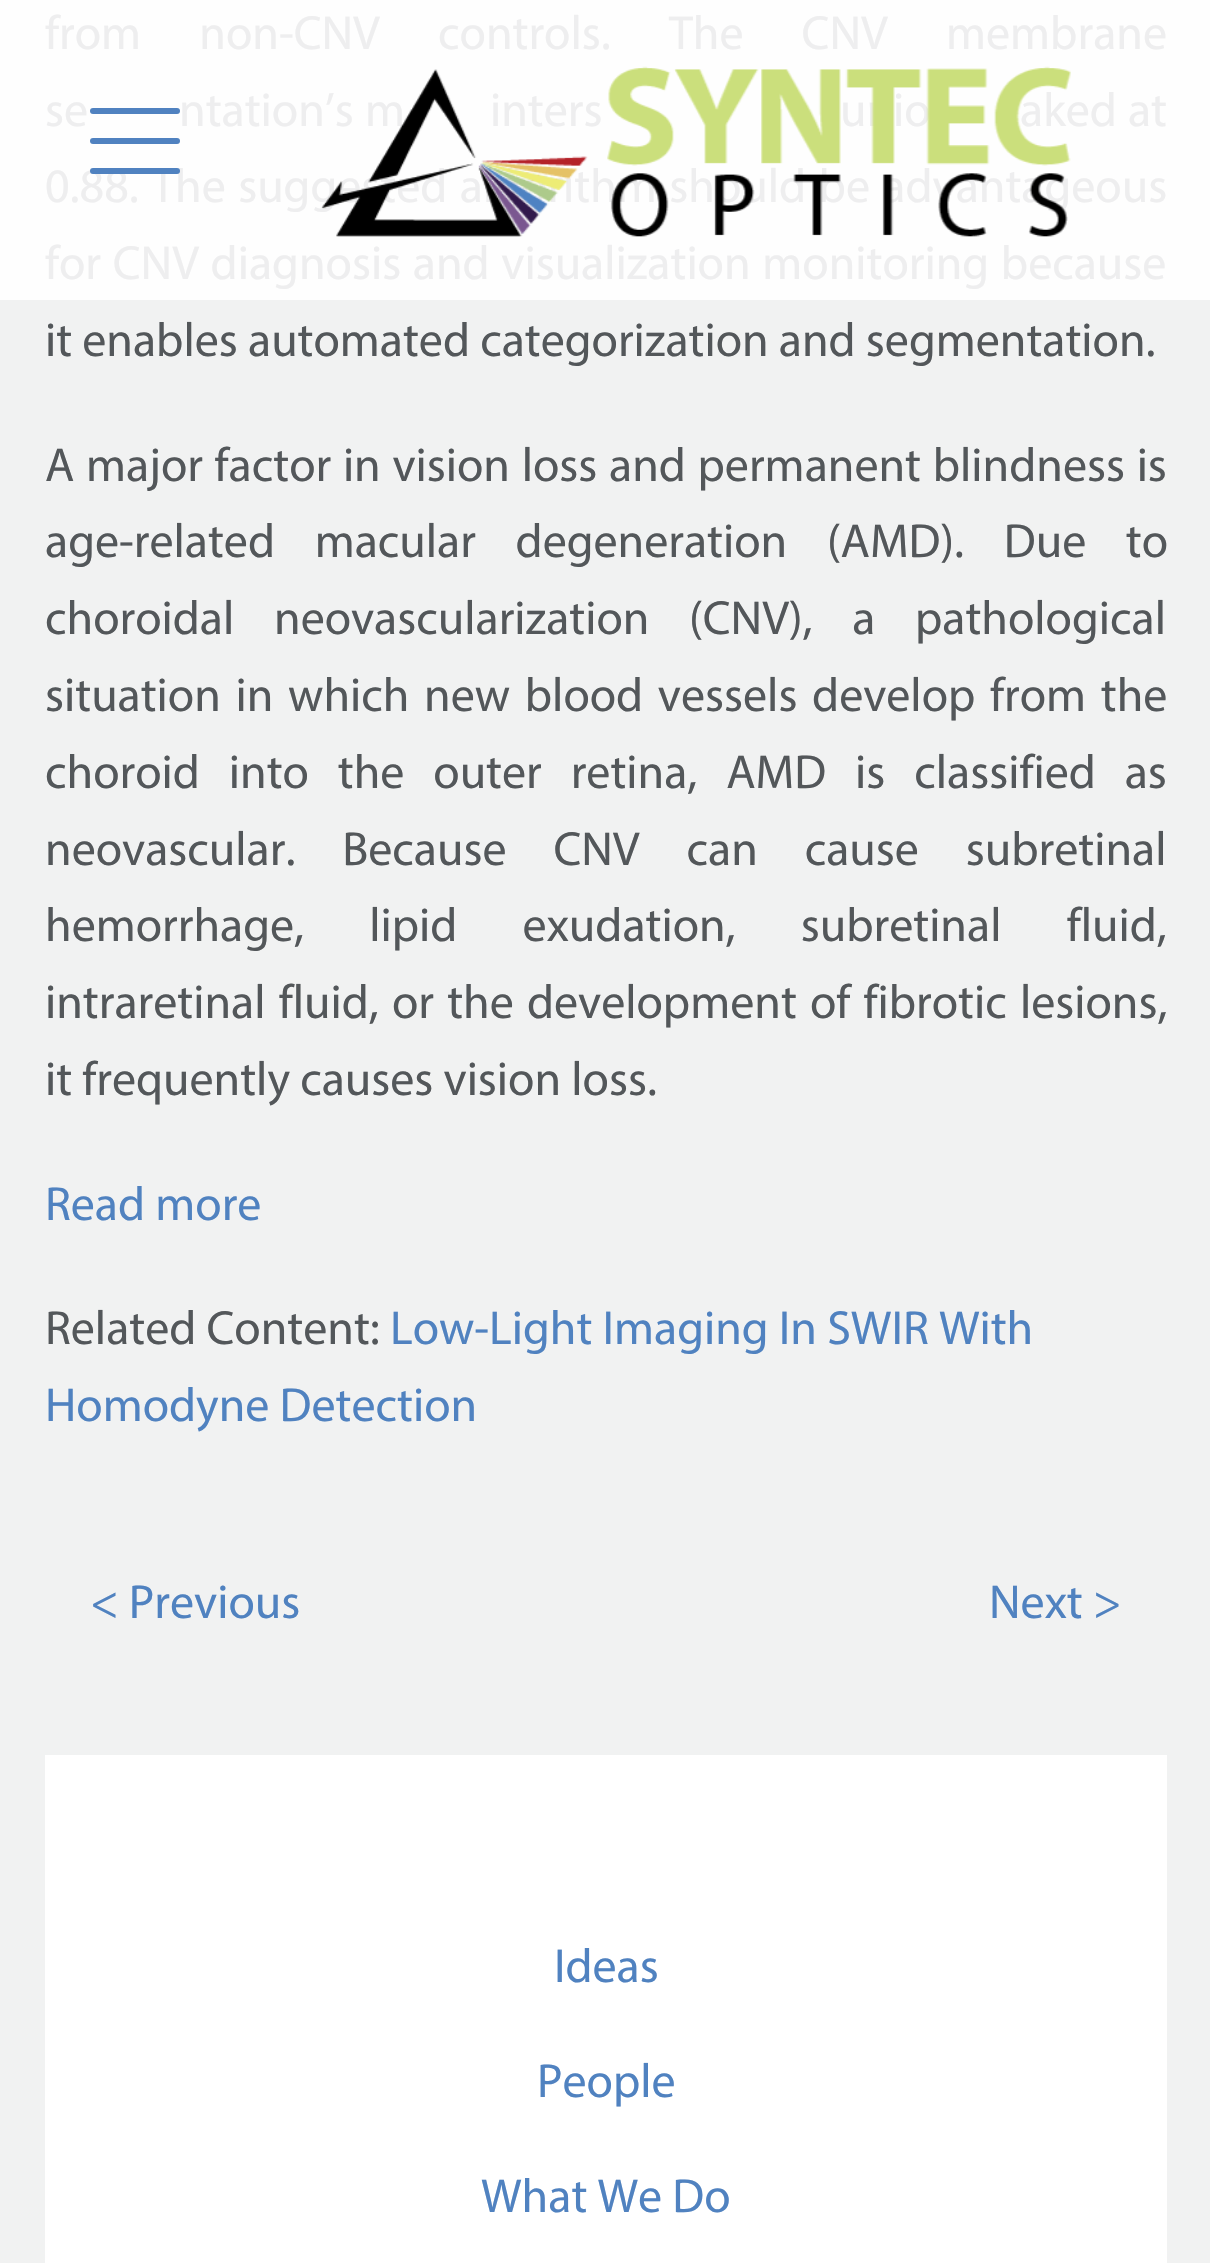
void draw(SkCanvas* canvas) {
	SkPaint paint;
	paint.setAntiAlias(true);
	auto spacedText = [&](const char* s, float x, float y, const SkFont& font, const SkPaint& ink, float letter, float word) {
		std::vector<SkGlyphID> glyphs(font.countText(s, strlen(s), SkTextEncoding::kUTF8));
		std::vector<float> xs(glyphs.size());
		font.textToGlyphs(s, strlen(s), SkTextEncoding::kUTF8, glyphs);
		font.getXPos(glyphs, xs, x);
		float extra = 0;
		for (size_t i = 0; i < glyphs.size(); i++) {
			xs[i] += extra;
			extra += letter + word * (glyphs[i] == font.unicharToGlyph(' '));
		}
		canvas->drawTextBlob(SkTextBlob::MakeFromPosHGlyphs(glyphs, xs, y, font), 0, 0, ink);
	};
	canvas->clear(0xfff1f2f2);
	paint.setColor(0xfffefefe);
	canvas->drawRect(SkRect::MakeXYWH(0, 0, 1210, 300), paint);
	SkFont f1(fontMgr->matchFamilyStyle("Myriad", SkFontStyle::Normal()), 48);
	f1.setSubpixel(true);
	paint.setColor(0xffeeeeef);
	spacedText("from non-CNV controls. The CNV membrane", 45, 49, f1, paint, 0, 48);
	spacedText("se", 45, 126, f1, paint, 0, 1);
	spacedText("ntation’s m", 179, 126, f1, paint, 0, 1);
	spacedText("inters", 490, 126, f1, paint, 0, 1);
	spacedText("unio", 840, 126, f1, paint, 0, 1);
	spacedText("aked at", 1020, 126, f1, paint, 0, 1);
	spacedText("0.88. The suggested algorithm should be advantageous", 45, 202, f1, paint, 0, 2.25);
	spacedText("for CNV diagnosis and visualization monitoring because", 45, 279, f1, paint, 0, 1.5);
	paint.setColor(0xff53575a);
	canvas->drawString("it enables automated categorization and segmentation.", 45, 356, f1, paint);
	spacedText("A major factor in vision loss and permanent blindness is", 45, 481, f1, paint, 0, 1.5);
	spacedText("age-related macular degeneration (AMD). Due to", 45, 557, f1, paint, 0, 29.5);
	spacedText("choroidal neovascularization (CNV), a pathological", 45, 634, f1, paint, 0, 29.5);
	spacedText("situation in which new blood vessels develop from the", 45, 711, f1, paint, 0, 4.5);
	spacedText("choroid into the outer retina, AMD is classified as", 45, 788, f1, paint, 0, 18.75);
	spacedText("neovascular. Because CNV can cause subretinal", 45, 865, f1, paint, 0, 36.75);
	spacedText("hemorrhage, lipid exudation, subretinal fluid,", 45, 941, f1, paint, 0, 55);
	spacedText("intraretinal fluid, or the development of fibrotic lesions,", 45, 1018, f1, paint, 0, 3);
	canvas->drawString("it frequently causes vision loss.", 45, 1095, f1, paint);
	paint.setColor(0xff5082c0);
	canvas->drawString("Read more", 45, 1220, f1, paint);
	paint.setColor(0xff53575a);
	canvas->drawString("Related Content:", 45, 1344, f1, paint);
	paint.setColor(0xff5082c0);
	canvas->drawString("Low-Light Imaging In SWIR With", 390, 1344, f1, paint);
	canvas->drawString("Homodyne Detection", 45, 1421, f1, paint);
	canvas->drawString("< Previous", 90, 1618, f1, paint);
	canvas->drawString("Next >", 989, 1618, f1, paint);
	paint.setColor(0xffffffff);
	canvas->drawRect(SkRect::MakeXYWH(45, 1755, 1122, 508), paint);
	paint.setColor(0xff5082c0);
	canvas->drawString("Ideas", 554, 1982, f1, paint);
	canvas->drawString("People", 537, 2097, f1, paint);
	canvas->drawString("What We Do", 481, 2212, f1, paint);
	canvas->drawRoundRect(SkRect::MakeXYWH(90, 108, 90, 6), 3, 3, paint);
	canvas->drawRoundRect(SkRect::MakeXYWH(90, 138, 90, 6), 3, 3, paint);
	canvas->drawRoundRect(SkRect::MakeXYWH(90, 168, 90, 6), 3, 3, paint);
	canvas->drawImageRect(SkImages::DeferredFromEncodedData(SkData::MakeFromFileName("img1.png")), SkRect::MakeXYWH(321, 66, 750, 171), SkSamplingOptions());
}
